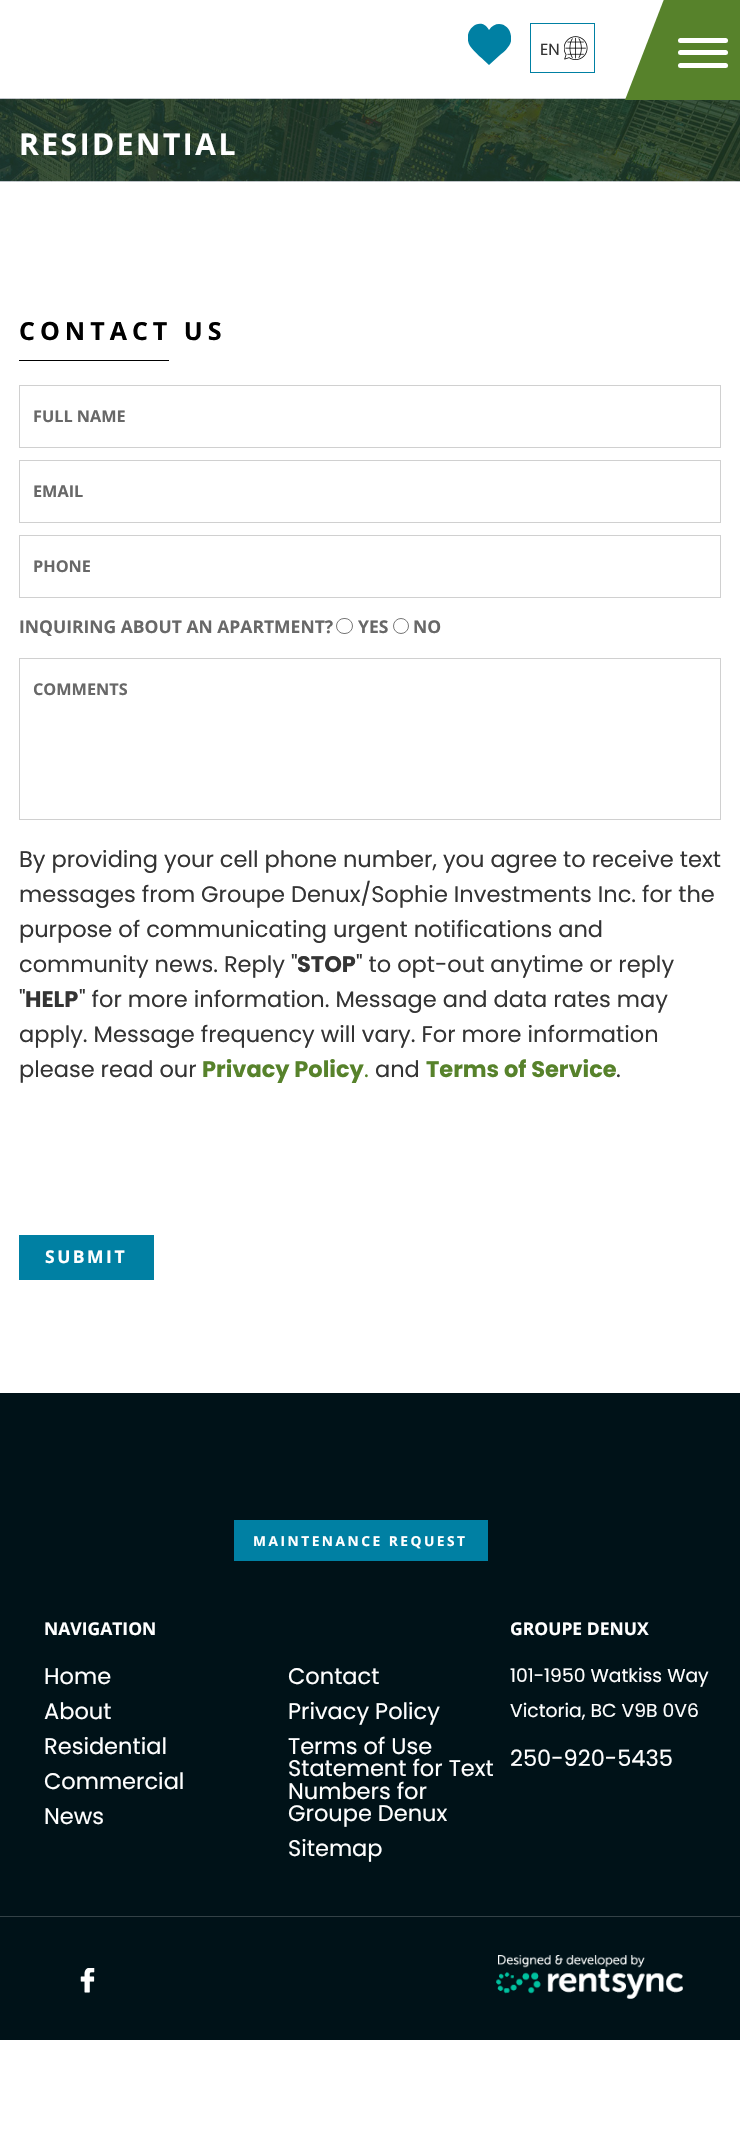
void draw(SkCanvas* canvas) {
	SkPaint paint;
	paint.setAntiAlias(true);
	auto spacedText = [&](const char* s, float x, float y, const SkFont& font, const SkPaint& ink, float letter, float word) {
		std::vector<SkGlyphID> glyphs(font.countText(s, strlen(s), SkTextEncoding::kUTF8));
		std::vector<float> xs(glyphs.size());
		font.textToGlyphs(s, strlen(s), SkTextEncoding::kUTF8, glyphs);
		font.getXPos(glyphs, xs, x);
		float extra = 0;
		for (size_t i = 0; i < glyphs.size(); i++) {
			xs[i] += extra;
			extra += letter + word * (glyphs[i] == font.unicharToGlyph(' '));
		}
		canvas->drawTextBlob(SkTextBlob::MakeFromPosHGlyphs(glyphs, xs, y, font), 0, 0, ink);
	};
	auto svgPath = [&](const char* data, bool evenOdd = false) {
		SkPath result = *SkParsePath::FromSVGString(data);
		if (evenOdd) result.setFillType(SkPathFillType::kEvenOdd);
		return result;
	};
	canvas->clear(0xffffffff);
	canvas->save();
	canvas->clipRect(SkRect::MakeXYWH(468, 23, 43, 43));
	paint.setColor(0xff0080a3);
	canvas->drawPath(svgPath("M511 36C510 24 496 19 489 30C481 15 461 30 470 46C474 52 484 60 489 65L500 55C505 51 513 44 511 36Z"), paint);
	canvas->restore();
	canvas->drawImageRect(SkImages::DeferredFromEncodedData(SkData::MakeFromFileName("img1.png")), SkRect::MakeXYWH(564, 36, 24, 24), SkSamplingOptions());
	paint.setStroke(true);
	paint.setStrokeWidth(1);
	canvas->drawRect(SkRect::MakeXYWH(530.5, 23.5, 64, 49), paint);
	SkFont f1(fontMgr->matchFamilyStyle("Poppins", SkFontStyle::Normal()), 16.25);
	f1.setSubpixel(true);
	paint.setStroke(false);
	paint.setColor(0xff343434);
	canvas->drawString("EN", 540, 55, f1, paint);
	canvas->drawImageRect(SkImages::DeferredFromEncodedData(SkData::MakeFromFileName("img2.png")), SkRect::MakeXYWH(0, 98, 740, 84), SkSamplingOptions());
	paint.setColor(0xff57822b);
	canvas->drawPath(svgPath("M666 100H625L666-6Z"), paint);
	canvas->drawRect(SkRect::MakeXYWH(666, 0, 74, 100), paint);
	paint.setColor(0xffffffff);
	canvas->drawRoundRect(SkRect::MakeXYWH(678, 38, 50, 5), 2.5, 2.5, paint);
	canvas->drawRoundRect(SkRect::MakeXYWH(678, 50, 50, 5), 2.5, 2.5, paint);
	canvas->drawRoundRect(SkRect::MakeXYWH(678, 63, 50, 5), 2.5, 2.5, paint);
	SkFont f2(fontMgr->matchFamilyStyle("Open Sans", SkFontStyle::Bold()), 30);
	f2.setSubpixel(true);
	spacedText("RESIDENTIAL", 19, 155, f2, paint, 2.5, 0);
	SkFont f3(fontMgr->matchFamilyStyle("Open Sans", SkFontStyle::Bold()), 25);
	f3.setSubpixel(true);
	paint.setColor(0xff000000);
	spacedText("CONTACT US", 19, 340, f3, paint, 5, 0);
	canvas->drawRect(SkRect::MakeXYWH(19, 360, 150, 1), paint);
	paint.setStroke(true);
	paint.setColor(0xffd0d0d0);
	canvas->drawRect(SkRect::MakeXYWH(19.5, 385.5, 701, 62), paint);
	SkFont f4(fontMgr->matchFamilyStyle("Open Sans", SkFontStyle::Bold()), 16.25);
	f4.setSubpixel(true);
	paint.setStroke(false);
	paint.setColor(0xff686868);
	canvas->drawString("FULL NAME", 33, 422, f4, paint);
	paint.setStroke(true);
	paint.setColor(0xffd0d0d0);
	canvas->drawRect(SkRect::MakeXYWH(19.5, 460.5, 701, 62), paint);
	paint.setStroke(false);
	paint.setColor(0xff686868);
	canvas->drawString("EMAIL", 33, 497, f4, paint);
	paint.setStroke(true);
	paint.setColor(0xffd0d0d0);
	canvas->drawRect(SkRect::MakeXYWH(19.5, 535.5, 701, 62), paint);
	paint.setStroke(false);
	paint.setColor(0xff686868);
	canvas->drawString("PHONE", 33, 572, f4, paint);
	SkFont f5(fontMgr->matchFamilyStyle("Open Sans", SkFontStyle::Bold()), 17.5);
	f5.setSubpixel(true);
	canvas->drawString("INQUIRING ABOUT AN APARTMENT?", 19, 633, f5, paint);
	paint.setStroke(true);
	paint.setColor(0xff767676);
	canvas->drawRoundRect(SkRect::MakeXYWH(336.5, 618.5, 16, 15), 7.5, 7.5, paint);
	paint.setStroke(false);
	paint.setColor(0xff686868);
	canvas->drawString("YES", 358, 633, f5, paint);
	paint.setStroke(true);
	paint.setColor(0xff767676);
	canvas->drawCircle(401, 626, 7.5, paint);
	paint.setStroke(false);
	paint.setColor(0xff686868);
	canvas->drawString("NO", 413, 633, f5, paint);
	paint.setStroke(true);
	paint.setColor(0xffd0d0d0);
	canvas->drawRect(SkRect::MakeXYWH(19.5, 658.5, 701, 161), paint);
	paint.setStroke(false);
	paint.setColor(0xff686868);
	canvas->drawString("COMMENTS", 33, 695, f4, paint);
	SkFont f6(fontMgr->matchFamilyStyle("Poppins", SkFontStyle::Normal()), 22.5);
	f6.setSubpixel(true);
	paint.setColor(0xff343434);
	canvas->drawString("By providing your cell phone number, you agree to receive text", 19, 867, f6, paint);
	canvas->drawString("messages from Groupe Denux/Sophie Investments Inc. for the", 19, 902, f6, paint);
	canvas->drawString("purpose of communicating urgent notifications and", 19, 937, f6, paint);
	canvas->drawString("community news. Reply \"", 19, 972, f6, paint);
	SkFont f7(fontMgr->matchFamilyStyle("Poppins", SkFontStyle::Bold()), 22.5);
	f7.setSubpixel(true);
	canvas->drawString("STOP", 297, 972, f7, paint);
	canvas->drawString("\" to opt-out anytime or reply", 356, 972, f6, paint);
	canvas->drawString("\"", 19, 1007, f6, paint);
	canvas->drawString("HELP", 25, 1007, f7, paint);
	canvas->drawString("\" for more information. Message and data rates may", 79, 1007, f6, paint);
	canvas->drawString("apply. Message frequency will vary. For more information", 19, 1042, f6, paint);
	canvas->drawString("please read our", 19, 1077, f6, paint);
	paint.setColor(0xff57822b);
	canvas->drawString("Privacy Policy", 202, 1077, f7, paint);
	canvas->drawString(".", 364, 1077, f6, paint);
	paint.setColor(0xff343434);
	canvas->drawString("and", 375, 1077, f6, paint);
	paint.setColor(0xff57822b);
	canvas->drawString("Terms of Service", 426, 1077, f7, paint);
	paint.setColor(0xff343434);
	canvas->drawString(".", 616, 1077, f6, paint);
	paint.setColor(0xff0080a3);
	canvas->drawRect(SkRect::MakeXYWH(19, 1235, 135, 45), paint);
	paint.setColor(0xffffffff);
	spacedText("SUBMIT", 45, 1263, f5, paint, 2.5, 0);
	paint.setColor(0xff001218);
	canvas->drawRect(SkRect::MakeXYWH(0, 1393, 740, 647), paint);
	paint.setColor(0xff0080a3);
	canvas->drawRect(SkRect::MakeXYWH(234, 1520, 254, 41), paint);
	SkFont f8(fontMgr->matchFamilyStyle("Open Sans", SkFontStyle::Bold()), 13.75);
	f8.setSubpixel(true);
	paint.setColor(0xffffffff);
	spacedText("MAINTENANCE REQUEST", 253, 1546, f8, paint, 2.5, 0);
	canvas->drawString("NAVIGATION", 44, 1635, f5, paint);
	canvas->drawString("Home", 44, 1684, f6, paint);
	canvas->drawString("Contact", 288, 1684, f6, paint);
	canvas->drawString("About", 44, 1719, f6, paint);
	canvas->drawString("Privacy Policy", 288, 1719, f6, paint);
	canvas->drawString("Residential", 44, 1754, f6, paint);
	canvas->drawString("Terms of Use", 288, 1754, f6, paint);
	canvas->drawString("Statement for Text", 288, 1776, f6, paint);
	canvas->drawString("Numbers for", 288, 1799, f6, paint);
	canvas->drawString("Groupe Denux", 288, 1821, f6, paint);
	canvas->drawString("Commercial", 44, 1789, f6, paint);
	canvas->drawString("News", 44, 1824, f6, paint);
	canvas->drawString("Sitemap", 288, 1856, f6, paint);
	canvas->drawString("GROUPE DENUX", 510, 1635, f5, paint);
	SkFont f9(fontMgr->matchFamilyStyle("Poppins", SkFontStyle::Normal()), 18.75);
	f9.setSubpixel(true);
	canvas->drawString("101-1950 Watkiss Way", 510, 1682, f9, paint);
	canvas->drawString("Victoria, BC V9B 0V6", 510, 1717, f9, paint);
	canvas->drawString("250-920-5435", 510, 1766, f6, paint);
	paint.setColor(0xff334146);
	canvas->drawRect(SkRect::MakeXYWH(0, 1916, 740, 1), paint);
	canvas->drawImageRect(SkImages::DeferredFromEncodedData(SkData::MakeFromFileName("img3.png")), SkRect::MakeXYWH(80, 1968, 15, 25), SkSamplingOptions());
	canvas->drawImageRect(SkImages::DeferredFromEncodedData(SkData::MakeFromFileName("img4.png")), SkRect::MakeXYWH(496, 1955, 187, 44), SkSamplingOptions());
}
